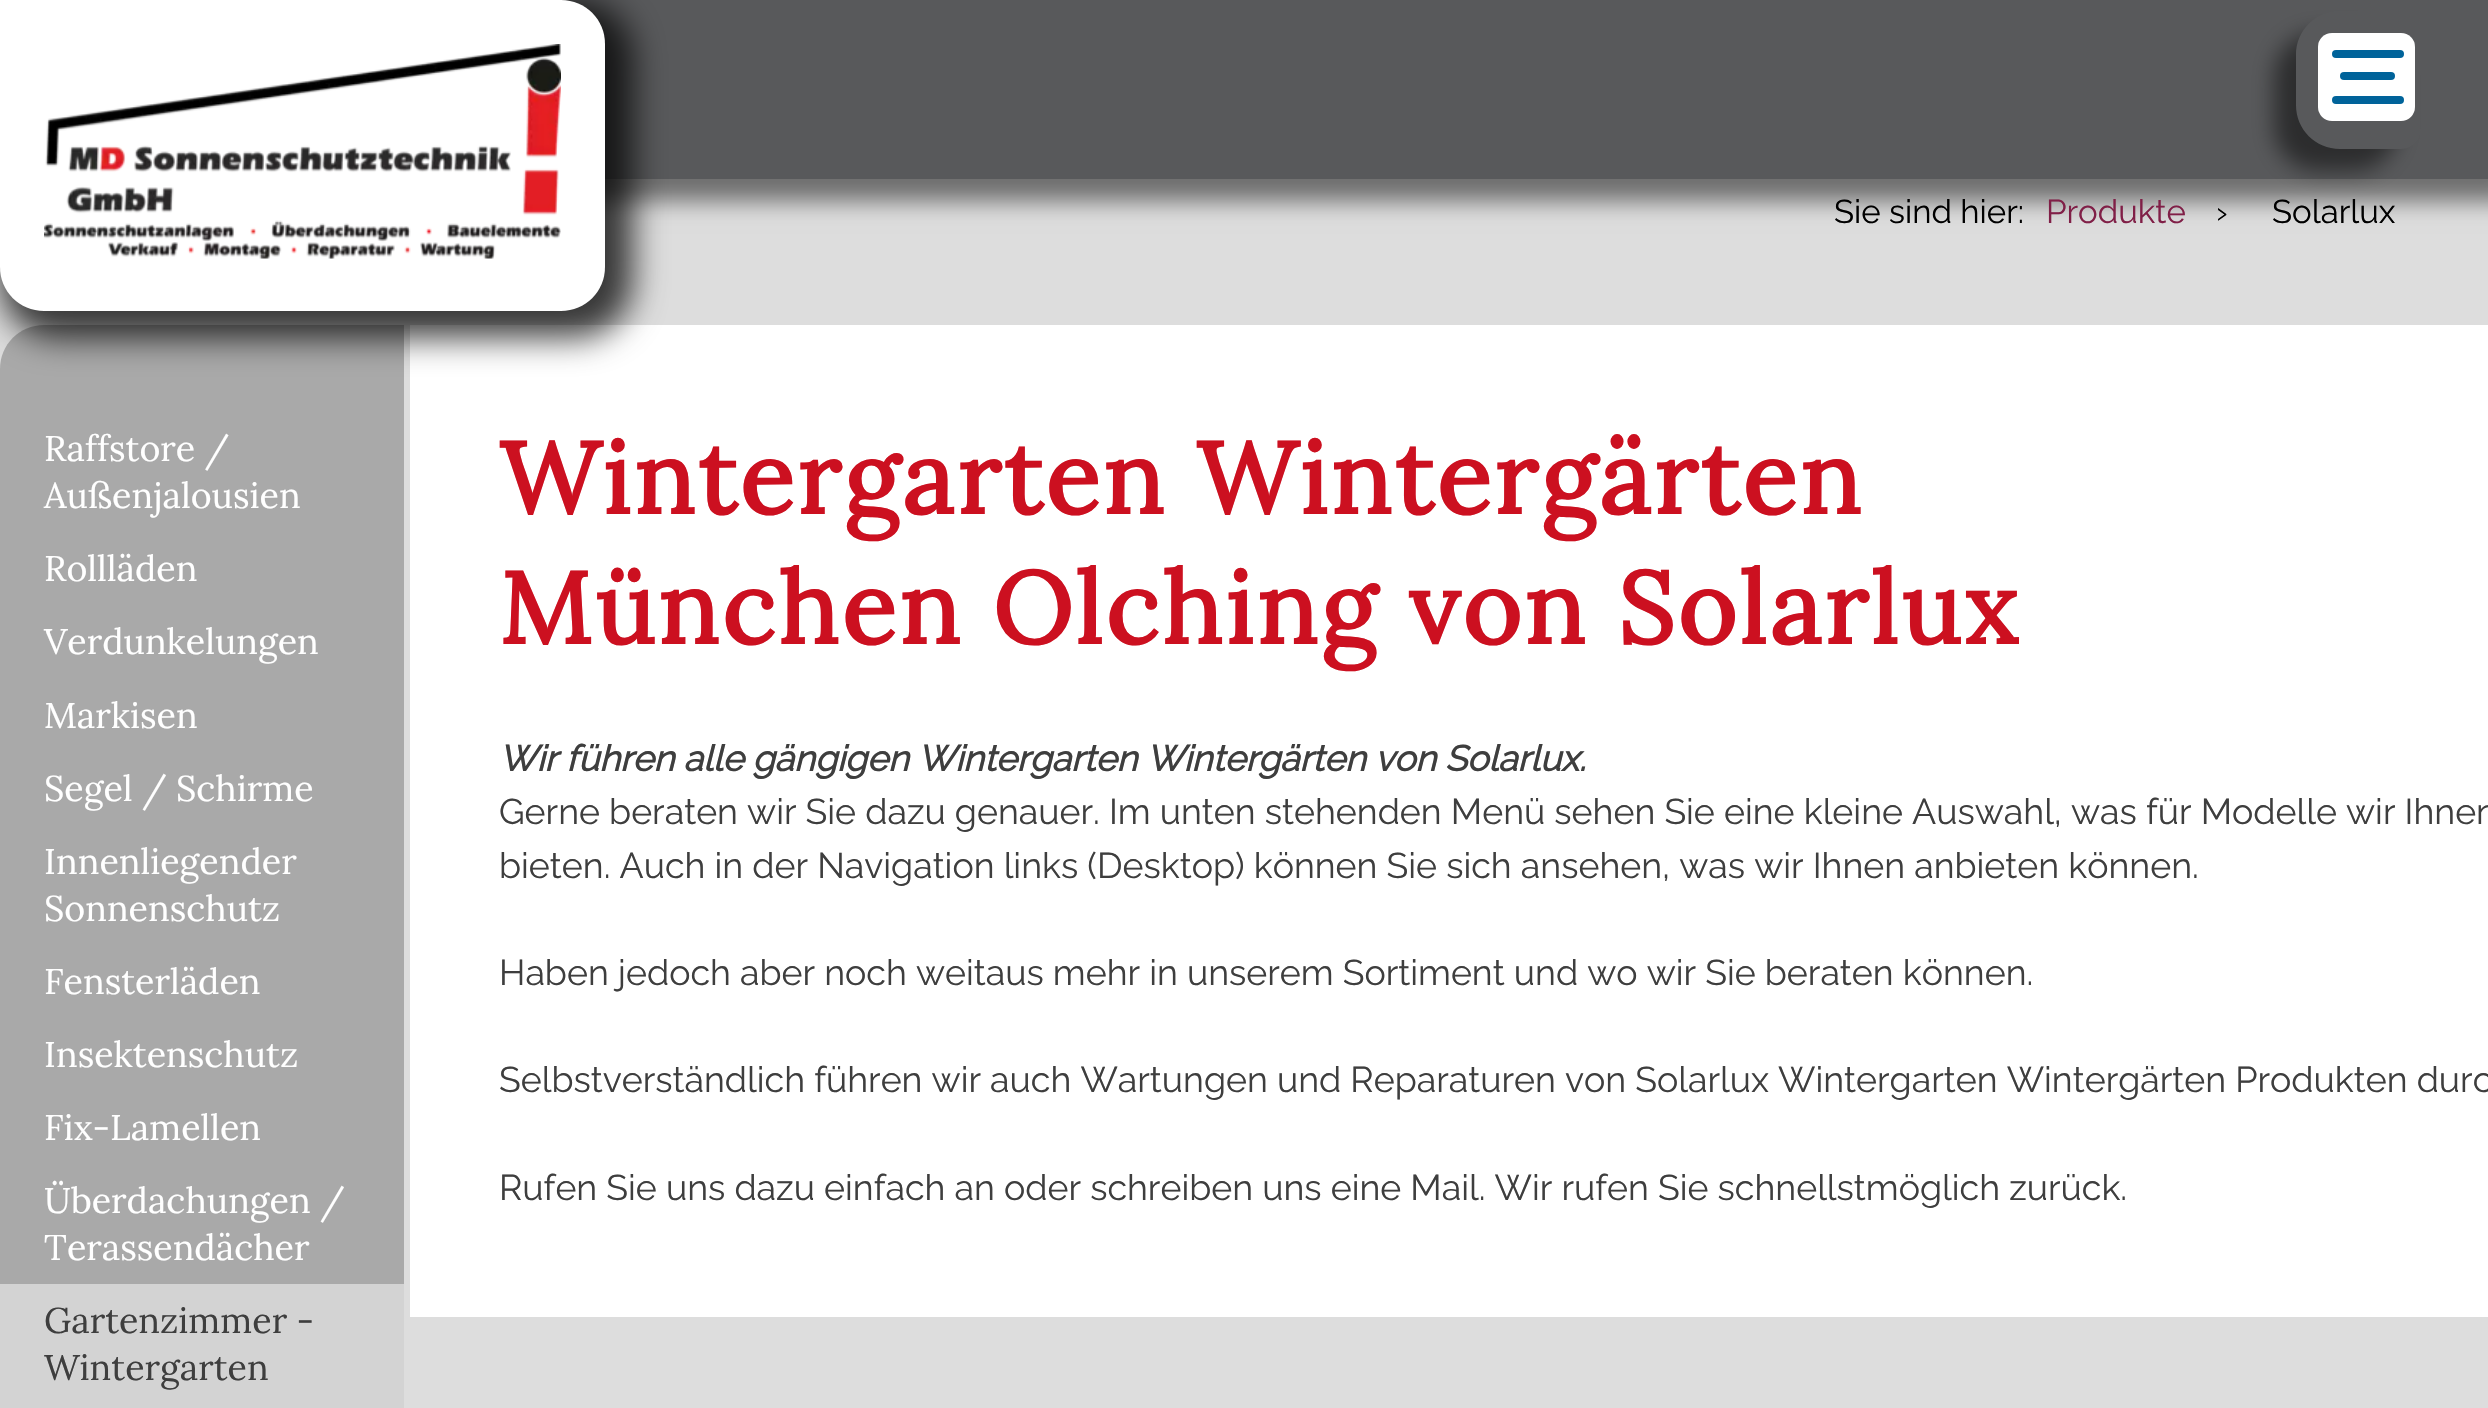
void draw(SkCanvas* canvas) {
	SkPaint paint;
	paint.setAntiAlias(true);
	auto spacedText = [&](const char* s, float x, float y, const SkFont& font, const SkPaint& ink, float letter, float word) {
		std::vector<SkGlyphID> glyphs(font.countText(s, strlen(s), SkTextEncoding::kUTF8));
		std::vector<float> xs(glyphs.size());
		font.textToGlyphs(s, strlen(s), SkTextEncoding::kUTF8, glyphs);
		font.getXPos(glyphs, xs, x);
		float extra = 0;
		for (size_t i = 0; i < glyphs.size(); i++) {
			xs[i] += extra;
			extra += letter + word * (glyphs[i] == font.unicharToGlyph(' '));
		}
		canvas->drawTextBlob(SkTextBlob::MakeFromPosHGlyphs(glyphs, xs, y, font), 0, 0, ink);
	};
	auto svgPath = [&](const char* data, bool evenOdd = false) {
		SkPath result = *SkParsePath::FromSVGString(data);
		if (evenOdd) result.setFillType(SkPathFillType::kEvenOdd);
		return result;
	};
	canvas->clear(0xffdddddd);
	paint.setColor(0x80000000);
	paint.setMaskFilter(SkMaskFilter::MakeBlur(kNormal_SkBlurStyle, 11));
	canvas->drawRect(SkRect::MakeXYWH(22, 22, 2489, 179), paint);
	paint.setMaskFilter(nullptr);
	paint.setColor(0xff58595b);
	canvas->drawRect(SkRect::MakeXYWH(561, 0, 1927, 179), paint);
	paint.setColor(0xffa9a9a9);
	canvas->drawPath(svgPath("M44 325H404V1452H44C19.5 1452 0 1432.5 0 1408V369C0 344.5 19.5 325 44 325Z"), paint);
	paint.setColor(0xffffffff);
	canvas->drawRect(SkRect::MakeXYWH(410, 325, 2078, 992), paint);
	paint.setColor(0xbf000000);
	paint.setMaskFilter(SkMaskFilter::MakeBlur(kNormal_SkBlurStyle, 16.5));
	canvas->drawRoundRect(SkRect::MakeXYWH(0, 0, 633, 338), 58, 58, paint);
	paint.setMaskFilter(nullptr);
	paint.setColor(0xffffffff);
	canvas->drawPath(svgPath("M0 0H561C585.5 0 605 19.5 605 44V267C605 291.5 585.5 311 561 311H44C19.5 311 0 291.5 0 267Z"), paint);
	canvas->drawImageRect(SkImages::DeferredFromEncodedData(SkData::MakeFromFileName("img1.png")), SkRect::MakeXYWH(44, 44, 517, 215), SkSamplingOptions());
	canvas->save();
	canvas->clipPath(svgPath("M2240 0H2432V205H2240ZM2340 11H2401C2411.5 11 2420 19.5 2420 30V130C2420 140.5 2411.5 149 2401 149H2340C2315.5 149 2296 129.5 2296 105V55C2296 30.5 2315.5 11 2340 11Z", true), true);
	paint.setColor(0x80000000);
	paint.setMaskFilter(SkMaskFilter::MakeBlur(kNormal_SkBlurStyle, 11));
	canvas->drawRoundRect(SkRect::MakeXYWH(2274, 33, 124, 138), 44, 44, paint);
	paint.setMaskFilter(nullptr);
	canvas->restore();
	paint.setColor(0xffffffff);
	canvas->drawRoundRect(SkRect::MakeXYWH(2318, 33, 97, 88), 14, 14, paint);
	paint.setColor(0xff00639a);
	canvas->drawRoundRect(SkRect::MakeXYWH(2332, 50, 72, 8), 4, 4, paint);
	canvas->drawRoundRect(SkRect::MakeXYWH(2340, 72, 55, 8), 4, 4, paint);
	canvas->drawRoundRect(SkRect::MakeXYWH(2332, 96, 72, 8), 4, 4, paint);
	SkFont f1(fontMgr->matchFamilyStyle("Raleway", SkFontStyle::Normal()), 33);
	f1.setSubpixel(true);
	paint.setColor(0xff000000);
	canvas->drawString("Sie sind hier:", 1834, 223, f1, paint);
	paint.setColor(0xff801f47);
	canvas->drawString("Produkte", 2046, 223, f1, paint);
	paint.setColor(0xff000000);
	canvas->drawString("›", 2216, 223, f1, paint);
	canvas->drawString("Solarlux", 2272, 223, f1, paint);
	SkFont f2(fontMgr->matchFamilyStyle("Lora", SkFontStyle::Normal()), 35.75);
	f2.setSubpixel(true);
	paint.setColor(0xffffffff);
	canvas->drawString("Raffstore /", 44, 461, f2, paint);
	canvas->drawString("Außenjalousien", 44, 508, f2, paint);
	canvas->drawString("Rollläden", 44, 581, f2, paint);
	canvas->drawString("Verdunkelungen", 44, 654, f2, paint);
	canvas->drawString("Markisen", 44, 728, f2, paint);
	canvas->drawString("Segel / Schirme", 44, 801, f2, paint);
	canvas->drawString("Innenliegender", 44, 874, f2, paint);
	canvas->drawString("Sonnenschutz", 44, 921, f2, paint);
	canvas->drawString("Fensterläden", 44, 994, f2, paint);
	canvas->drawString("Insektenschutz", 44, 1067, f2, paint);
	canvas->drawString("Fix-Lamellen", 44, 1140, f2, paint);
	canvas->drawString("Überdachungen /", 44, 1213, f2, paint);
	canvas->drawString("Terassendächer", 44, 1260, f2, paint);
	paint.setColor(0xffd3d3d3);
	canvas->drawRect(SkRect::MakeXYWH(0, 1284, 404, 124), paint);
	paint.setColor(0xff3e3e3e);
	canvas->drawString("Gartenzimmer -", 44, 1333, f2, paint);
	canvas->drawString("Wintergarten", 44, 1380, f2, paint);
	SkFont f3(fontMgr->matchFamilyStyle("Lora", SkFontStyle::Bold()), 101);
	f3.setSubpixel(true);
	paint.setColor(0xffcc1020);
	spacedText("Wintergarten Wintergärten", 499, 514, f3, paint, 2.75, 0);
	spacedText("München Olching von Solarlux", 499, 644, f3, paint, 2.75, 0);
	SkFont f4(fontMgr->matchFamilyStyle("Raleway", SkFontStyle::BoldItalic()), 35.75);
	f4.setSubpixel(true);
	paint.setColor(0xff3e3e3e);
	canvas->drawString("Wir führen alle gängigen Wintergarten Wintergärten von Solarlux.", 499, 771, f4, paint);
	SkFont f5(fontMgr->matchFamilyStyle("Raleway", SkFontStyle::Normal()), 35.75);
	f5.setSubpixel(true);
	canvas->drawString("Gerne beraten wir Sie dazu genauer. Im unten stehenden Menü sehen Sie eine kleine Auswahl, was für Modelle wir Ihnen", 499, 824, f5, paint);
	canvas->drawString("bieten. Auch in der Navigation links (Desktop) können Sie sich ansehen, was wir Ihnen anbieten können.", 499, 878, f5, paint);
	canvas->drawString("Haben jedoch aber noch weitaus mehr in unserem Sortiment und wo wir Sie beraten können.", 499, 985, f5, paint);
	canvas->drawString("Selbstverständlich führen wir auch Wartungen und Reparaturen von Solarlux Wintergarten Wintergärten Produkten durc", 499, 1092, f5, paint);
	canvas->drawString("Rufen Sie uns dazu einfach an oder schreiben uns eine Mail. Wir rufen Sie schnellstmöglich zurück.", 499, 1200, f5, paint);
}
